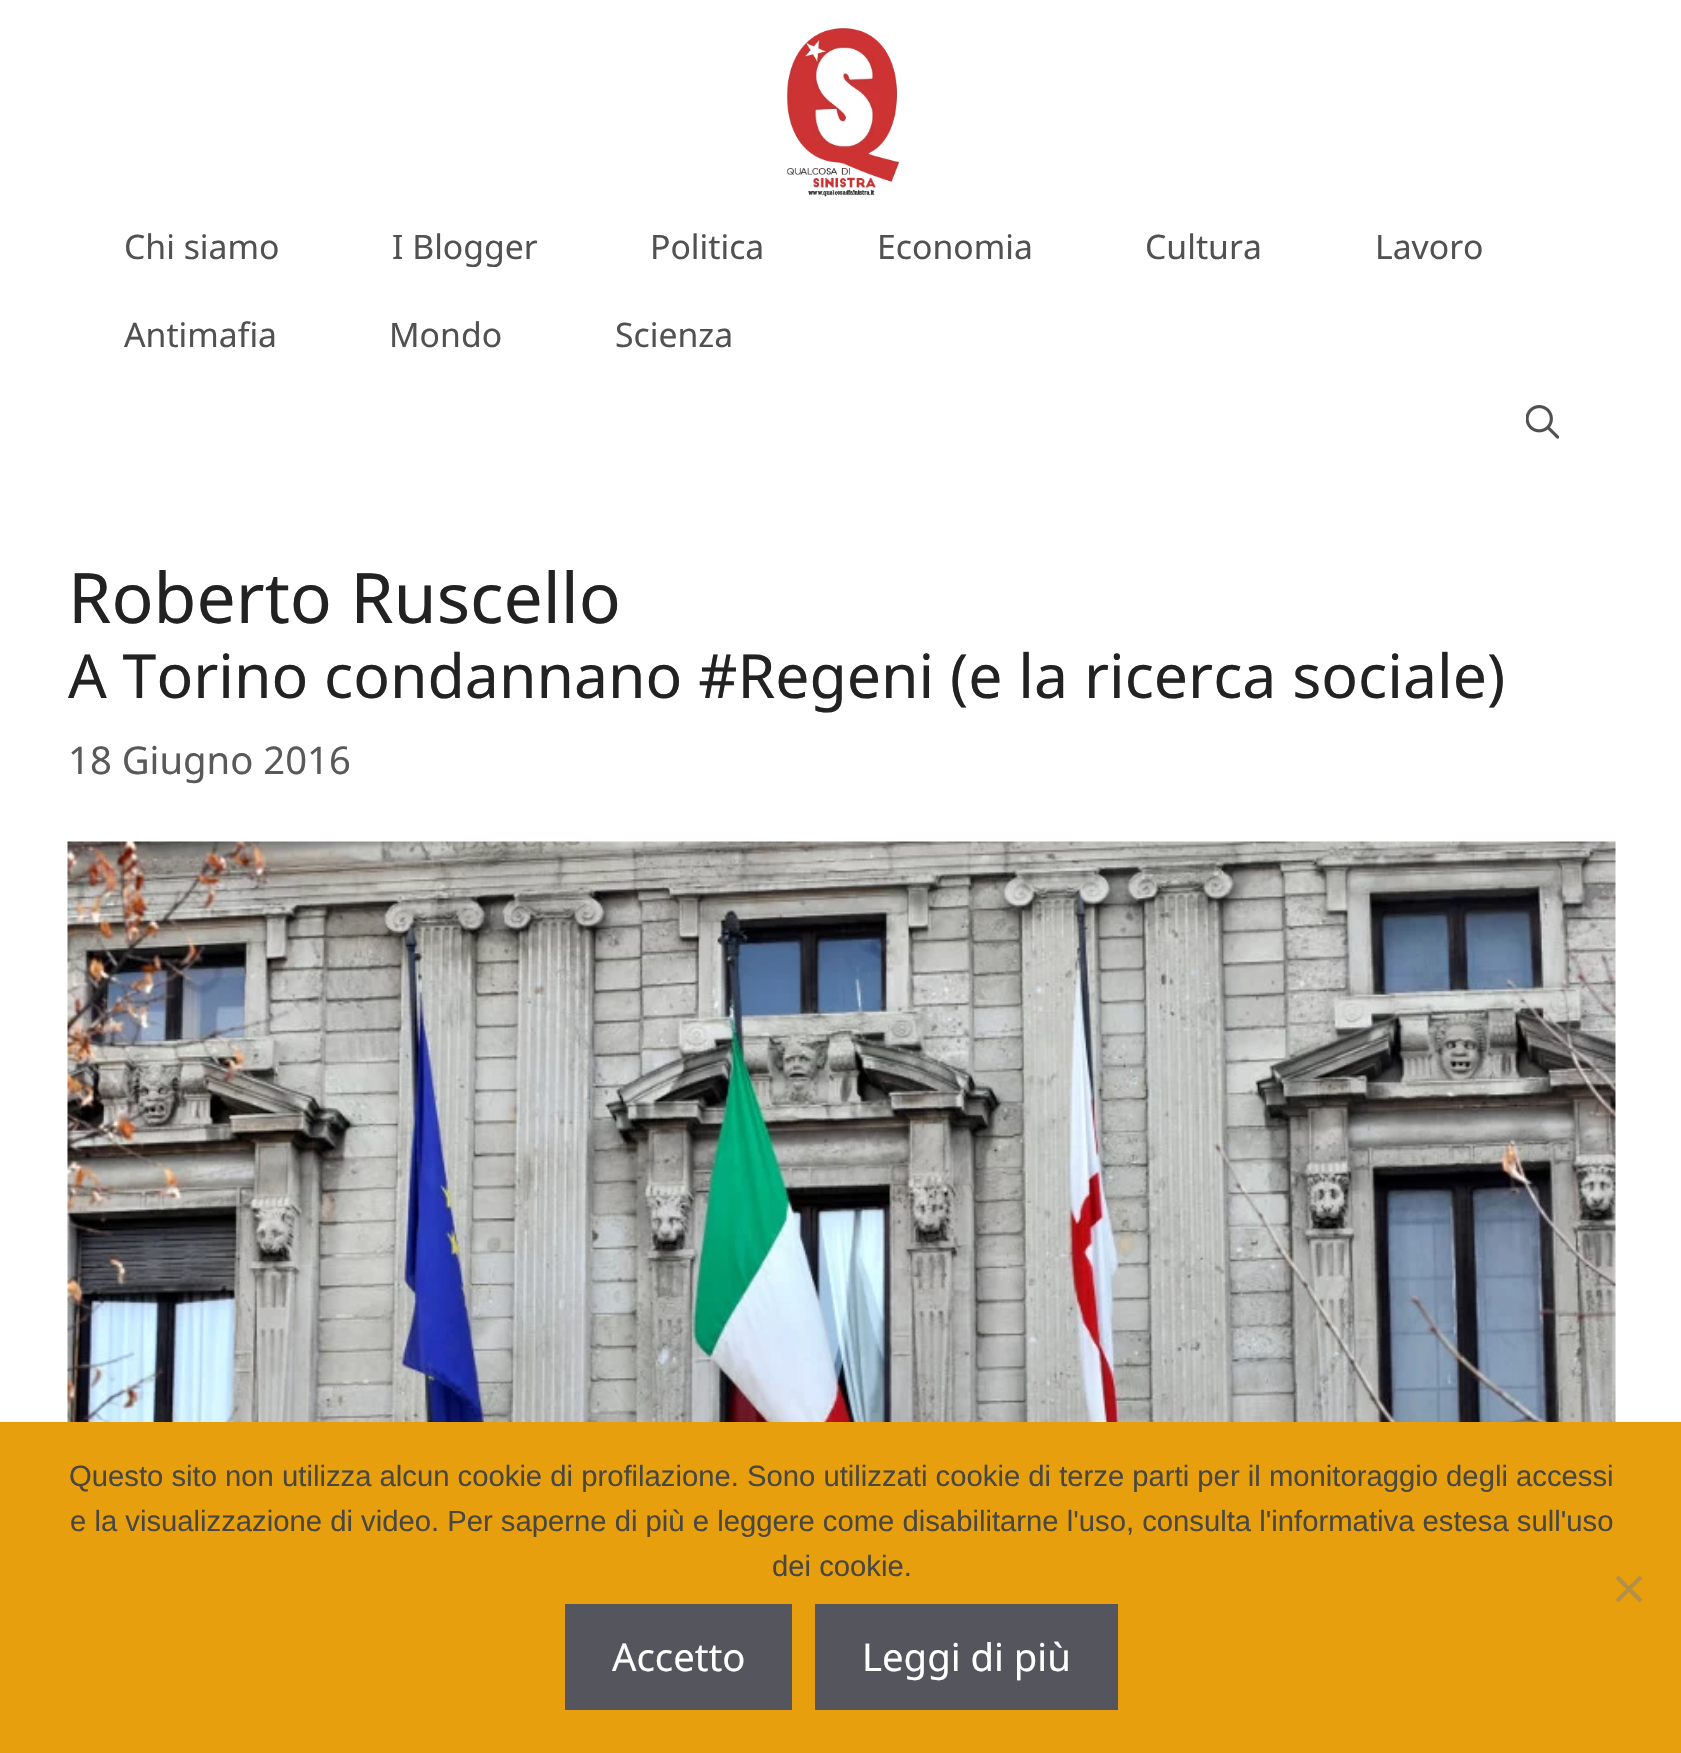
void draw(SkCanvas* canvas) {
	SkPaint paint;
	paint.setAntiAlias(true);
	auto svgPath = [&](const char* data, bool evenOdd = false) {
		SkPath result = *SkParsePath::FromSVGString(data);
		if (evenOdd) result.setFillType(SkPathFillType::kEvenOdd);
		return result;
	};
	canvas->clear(0xffffffff);
	canvas->drawImageRect(SkImages::DeferredFromEncodedData(SkData::MakeFromFileName("img1.png")), SkRect::MakeXYWH(786, 28, 113, 169), SkSamplingOptions());
	SkFont f1(fontMgr->matchFamilyStyle("Noto Sans", SkFontStyle::Normal()), 33.75);
	f1.setSubpixel(true);
	paint.setColor(0xff515151);
	canvas->drawString("Chi siamo", 124, 259, f1, paint);
	canvas->drawString("I Blogger", 392, 259, f1, paint);
	canvas->drawString("Politica", 650, 259, f1, paint);
	canvas->drawString("Economia", 877, 259, f1, paint);
	canvas->drawString("Cultura", 1145, 259, f1, paint);
	canvas->drawString("Lavoro", 1375, 259, f1, paint);
	canvas->drawString("Antimafia", 124, 347, f1, paint);
	canvas->drawString("Mondo", 389, 347, f1, paint);
	canvas->drawString("Scienza", 615, 347, f1, paint);
	canvas->drawImageRect(SkImages::DeferredFromEncodedData(SkData::MakeFromFileName("img2.png")), SkRect::MakeXYWH(1526, 405, 33, 34), SkSamplingOptions());
	SkFont f2(fontMgr->matchFamilyStyle("Noto Sans", SkFontStyle::Normal()), 69.75);
	f2.setSubpixel(true);
	paint.setColor(0xff222222);
	canvas->drawString("Roberto Ruscello", 68, 623, f2, paint);
	SkFont f3(fontMgr->matchFamilyStyle("Noto Sans", SkFontStyle::Normal()), 60.75);
	f3.setSubpixel(true);
	canvas->drawString("A Torino condannano #Regeni (e la ricerca sociale)", 68, 698, f3, paint);
	SkFont f4(fontMgr->matchFamilyStyle("Noto Sans", SkFontStyle::Normal()), 38.25);
	f4.setSubpixel(true);
	paint.setColor(0xff595959);
	canvas->drawString("18 Giugno 2016", 68, 774, f4, paint);
	canvas->drawImageRect(SkImages::DeferredFromEncodedData(SkData::MakeFromFileName("img3.png")), SkRect::MakeXYWH(67, 841, 1549, 581), SkSamplingOptions());
	paint.setColor(0xffe89f0d);
	canvas->drawRect(SkRect::MakeXYWH(0, 1422, 1681, 331), paint);
	SkFont f5(fontMgr->matchFamilyStyle("Liberation Sans", SkFontStyle::Normal()), 29.25);
	f5.setSubpixel(true);
	paint.setColor(0xff494740);
	canvas->drawString("Questo sito non utilizza alcun cookie di profilazione. Sono utilizzati cookie di terze parti per il monitoraggio degli accessi", 69, 1486, f5, paint);
	canvas->drawString("e la visualizzazione di video. Per saperne di più e leggere come disabilitarne l'uso, consulta l'informativa estesa sull'uso", 70, 1531, f5, paint);
	canvas->drawString("dei cookie.", 772, 1576, f5, paint);
	paint.setColor(0xffb49047);
	canvas->drawPath(svgPath("M1639.5 1575.5L1642.5 1578.5L1618.5 1602.5L1615.5 1599.5Z"), paint);
	canvas->drawPath(svgPath("M1615.5 1578.5L1618.5 1575.5L1642.5 1599.5L1639.5 1602.5Z"), paint);
	paint.setColor(0xff55555e);
	canvas->drawRect(SkRect::MakeXYWH(565, 1604, 227, 106), paint);
	paint.setColor(0xffffffff);
	canvas->drawString("Accetto", 612, 1671, f4, paint);
	paint.setColor(0xff55555e);
	canvas->drawRect(SkRect::MakeXYWH(815, 1604, 303, 106), paint);
	paint.setColor(0xffffffff);
	canvas->drawString("Leggi di più", 862, 1671, f4, paint);
}
